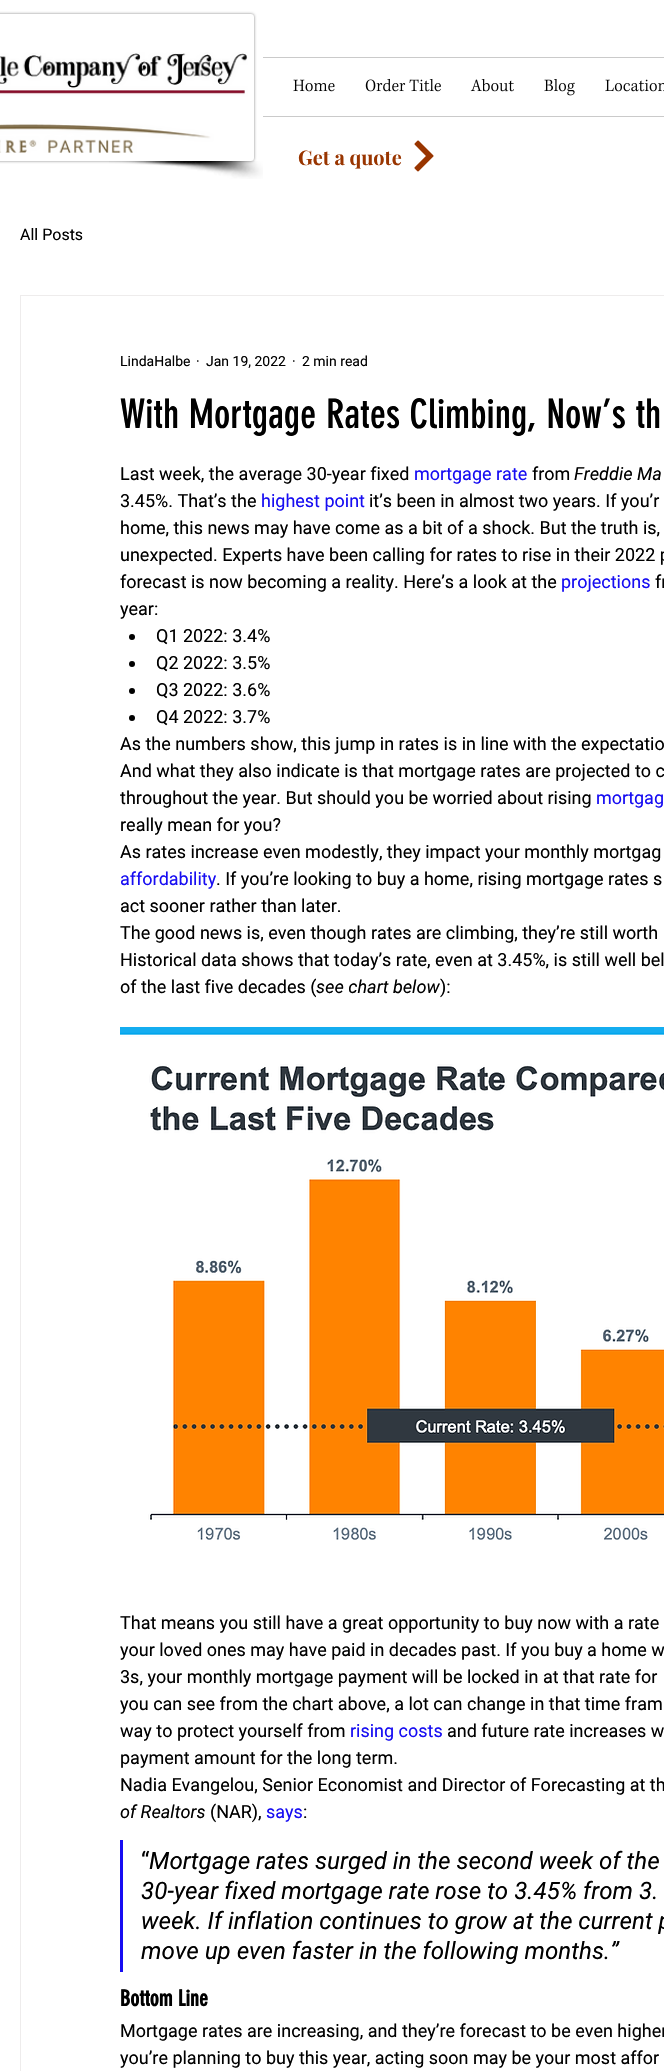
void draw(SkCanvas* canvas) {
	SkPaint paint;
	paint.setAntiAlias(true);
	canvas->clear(0xffffffff);
	paint.setColor(0x80000000);
	paint.setMaskFilter(SkMaskFilter::MakeBlur(kNormal_SkBlurStyle, 1.5));
	canvas->drawRoundRect(SkRect::MakeXYWH(-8, 14, 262, 147), 3, 3, paint);
	paint.setMaskFilter(nullptr);
	paint.setColor(0xffffffff);
	canvas->drawRoundRect(SkRect::MakeXYWH(-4, 15, 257, 145), 2, 2, paint);
	paint.setStroke(true);
	paint.setStrokeWidth(2);
	canvas->drawRoundRect(SkRect::MakeXYWH(-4, 15, 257, 145), 2, 2, paint);
	canvas->drawImageRect(SkImages::DeferredFromEncodedData(SkData::MakeFromFileName("img1.png")), SkRect::MakeXYWH(0, 52, 248, 101), SkSamplingOptions());
	canvas->drawImageRect(SkImages::DeferredFromEncodedData(SkData::MakeFromFileName("img2.png")), SkRect::MakeXYWH(109, 161, 154, 18), SkSamplingOptions());
	paint.setStroke(false);
	paint.setColor(0xffcacaca);
	canvas->drawRect(SkRect::MakeXYWH(263, 57, 401, 1), paint);
	canvas->drawRect(SkRect::MakeXYWH(263, 116, 401, 1), paint);
	canvas->drawImageRect(SkImages::DeferredFromEncodedData(SkData::MakeFromFileName("img3.png")), SkRect::MakeXYWH(293, 79, 42, 13), SkSamplingOptions());
	canvas->drawImageRect(SkImages::DeferredFromEncodedData(SkData::MakeFromFileName("img4.png")), SkRect::MakeXYWH(365, 78, 76, 14), SkSamplingOptions());
	canvas->drawImageRect(SkImages::DeferredFromEncodedData(SkData::MakeFromFileName("img5.png")), SkRect::MakeXYWH(470, 79, 44, 13), SkSamplingOptions());
	canvas->drawImageRect(SkImages::DeferredFromEncodedData(SkData::MakeFromFileName("img6.png")), SkRect::MakeXYWH(544, 79, 31, 17), SkSamplingOptions());
	canvas->drawImageRect(SkImages::DeferredFromEncodedData(SkData::MakeFromFileName("img7.png")), SkRect::MakeXYWH(605, 79, 59, 13), SkSamplingOptions());
	SkFont f1(fontMgr->matchFamilyStyle("Playfair Display", SkFontStyle::Bold()), 20);
	f1.setSubpixel(true);
	paint.setColor(0xff993500);
	canvas->drawString("Get a quote", 298, 165, f1, paint);
	canvas->drawImageRect(SkImages::DeferredFromEncodedData(SkData::MakeFromFileName("img8.png")), SkRect::MakeXYWH(414, 140, 20, 32), SkSamplingOptions());
	SkFont f2(fontMgr->matchFamilyStyle("Roboto", SkFontStyle::Normal()), 16);
	f2.setSubpixel(true);
	paint.setColor(0xff000000);
	canvas->drawString("All Posts", 20, 240, f2, paint);
	paint.setStroke(true);
	paint.setStrokeWidth(1);
	paint.setColor(0xffeeecec);
	canvas->drawRect(SkRect::MakeXYWH(20.5, 295.5, 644, 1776), paint);
	SkFont f3(fontMgr->matchFamilyStyle("Roboto", SkFontStyle::Normal()), 14);
	f3.setSubpixel(true);
	paint.setStroke(false);
	paint.setColor(0xff000000);
	canvas->drawString("LindaHalbe", 120, 366, f3, paint);
	canvas->drawString("·", 196, 366, f3, paint);
	canvas->drawString("Jan 19, 2022", 206, 366, f3, paint);
	canvas->drawString("·", 292, 366, f3, paint);
	canvas->drawString("2 min read", 302, 366, f3, paint);
	SkFont f4(fontMgr->matchFamilyStyle("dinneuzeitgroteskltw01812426", SkFontStyle::Normal()), 40);
	f4.setSubpixel(true);
	canvas->drawString("With Mortgage Rates Climbing, Now’s th", 120, 428, f4, paint);
	SkFont f5(fontMgr->matchFamilyStyle("Roboto", SkFontStyle::Normal()), 18);
	f5.setSubpixel(true);
	canvas->drawString("Last week, the average 30-year fixed", 120, 480, f5, paint);
	paint.setColor(0xff170df2);
	canvas->drawString("mortgage rate", 414, 480, f5, paint);
	paint.setColor(0xff000000);
	canvas->drawString("from", 532, 480, f5, paint);
	SkFont f6(fontMgr->matchFamilyStyle("Roboto", SkFontStyle::Italic()), 18);
	f6.setSubpixel(true);
	canvas->drawString("Freddie Ma", 574, 480, f6, paint);
	canvas->drawString("3.45%. That’s the", 120, 507, f5, paint);
	paint.setColor(0xff170df2);
	canvas->drawString("highest point", 261, 507, f5, paint);
	paint.setColor(0xff000000);
	canvas->drawString("it’s been in almost two years. If you’r", 369, 507, f5, paint);
	canvas->drawString("home, this news may have come as a bit of a shock. But the truth is,", 120, 534, f5, paint);
	canvas->drawString("unexpected. Experts have been calling for rates to rise in their 2022 p", 120, 561, f5, paint);
	canvas->drawString("forecast is now becoming a reality. Here’s a look at the", 120, 588, f5, paint);
	paint.setColor(0xff170df2);
	canvas->drawString("projections", 561, 588, f5, paint);
	paint.setColor(0xff000000);
	canvas->drawString("fr", 655, 588, f5, paint);
	canvas->drawString("year:", 120, 615, f5, paint);
	canvas->drawCircle(132, 637, 3, paint);
	canvas->drawString("Q1 2022: 3.4%", 156, 642, f5, paint);
	canvas->drawCircle(132, 664, 3, paint);
	canvas->drawString("Q2 2022: 3.5%", 156, 669, f5, paint);
	canvas->drawCircle(132, 691, 3, paint);
	canvas->drawString("Q3 2022: 3.6%", 156, 696, f5, paint);
	canvas->drawCircle(132, 718, 3, paint);
	canvas->drawString("Q4 2022: 3.7%", 156, 723, f5, paint);
	canvas->drawString("As the numbers show, this jump in rates is in line with the expectatio", 120, 750, f5, paint);
	canvas->drawString("And what they also indicate is that mortgage rates are projected to c", 120, 777, f5, paint);
	canvas->drawString("throughout the year. But should you be worried about rising", 120, 804, f5, paint);
	paint.setColor(0xff170df2);
	canvas->drawString("mortgag", 596, 804, f5, paint);
	paint.setColor(0xff000000);
	canvas->drawString("really mean for you?", 120, 831, f5, paint);
	canvas->drawString("As rates increase even modestly, they impact your monthly mortgag", 120, 858, f5, paint);
	paint.setColor(0xff170df2);
	canvas->drawString("affordability", 120, 885, f5, paint);
	paint.setColor(0xff000000);
	canvas->drawString(". If you’re looking to buy a home, rising mortgage rates s", 216, 885, f5, paint);
	canvas->drawString("act sooner rather than later.", 120, 912, f5, paint);
	canvas->drawString("The good news is, even though rates are climbing, they’re still worth", 120, 939, f5, paint);
	canvas->drawString("Historical data shows that today’s rate, even at 3.45%, is still well bel", 120, 966, f5, paint);
	canvas->drawString("of the last five decades (", 120, 993, f5, paint);
	canvas->drawString("see chart below", 316, 993, f6, paint);
	canvas->drawString("):", 440, 993, f5, paint);
	canvas->drawImageRect(SkImages::DeferredFromEncodedData(SkData::MakeFromFileName("img9.png")), SkRect::MakeXYWH(120, 1027, 544, 513), SkSamplingOptions());
	canvas->drawString("That means you still have a great opportunity to buy now with a rate", 120, 1629, f5, paint);
	canvas->drawString("your loved ones may have paid in decades past. If you buy a home w", 120, 1656, f5, paint);
	canvas->drawString("3s, your monthly mortgage payment will be locked in at that rate for", 120, 1683, f5, paint);
	canvas->drawString("you can see from the chart above, a lot can change in that time fram", 120, 1710, f5, paint);
	canvas->drawString("way to protect yourself from", 120, 1737, f5, paint);
	paint.setColor(0xff170df2);
	canvas->drawString("rising costs", 350, 1737, f5, paint);
	paint.setColor(0xff000000);
	canvas->drawString("and future rate increases w", 447, 1737, f5, paint);
	canvas->drawString("payment amount for the long term.", 120, 1764, f5, paint);
	canvas->drawString("Nadia Evangelou, Senior Economist and Director of Forecasting at th", 120, 1791, f5, paint);
	canvas->drawString("of Realtors", 120, 1818, f6, paint);
	canvas->drawString("(NAR),", 210, 1818, f5, paint);
	paint.setColor(0xff170df2);
	canvas->drawString("says", 266, 1818, f5, paint);
	paint.setColor(0xff000000);
	canvas->drawString(":", 303, 1818, f5, paint);
	paint.setColor(0xff170df2);
	canvas->drawRect(SkRect::MakeXYWH(120, 1840, 3, 132), paint);
	SkFont f7(fontMgr->matchFamilyStyle("Roboto", SkFontStyle::Normal()), 24);
	f7.setSubpixel(true);
	paint.setColor(0xff000000);
	canvas->drawString("“", 141, 1869, f7, paint);
	SkFont f8(fontMgr->matchFamilyStyle("Roboto", SkFontStyle::Italic()), 24);
	f8.setSubpixel(true);
	canvas->drawString("Mortgage rates surged in the second week of the", 149, 1869, f8, paint);
	canvas->drawString("30-year fixed mortgage rate rose to 3.45% from 3.", 141, 1899, f8, paint);
	canvas->drawString("week. If inflation continues to grow at the current p", 141, 1929, f8, paint);
	canvas->drawString("move up even faster in the following months.”", 141, 1959, f8, paint);
	SkFont f9(fontMgr->matchFamilyStyle("dinneuzeitgroteskltw01812426", SkFontStyle::Bold()), 22);
	f9.setSubpixel(true);
	canvas->drawString("Bottom Line", 120, 2006, f9, paint);
	canvas->drawString("Mortgage rates are increasing, and they’re forecast to be even higher", 120, 2037, f5, paint);
	canvas->drawString("you’re planning to buy this year, acting soon may be your most affor", 120, 2064, f5, paint);
}
